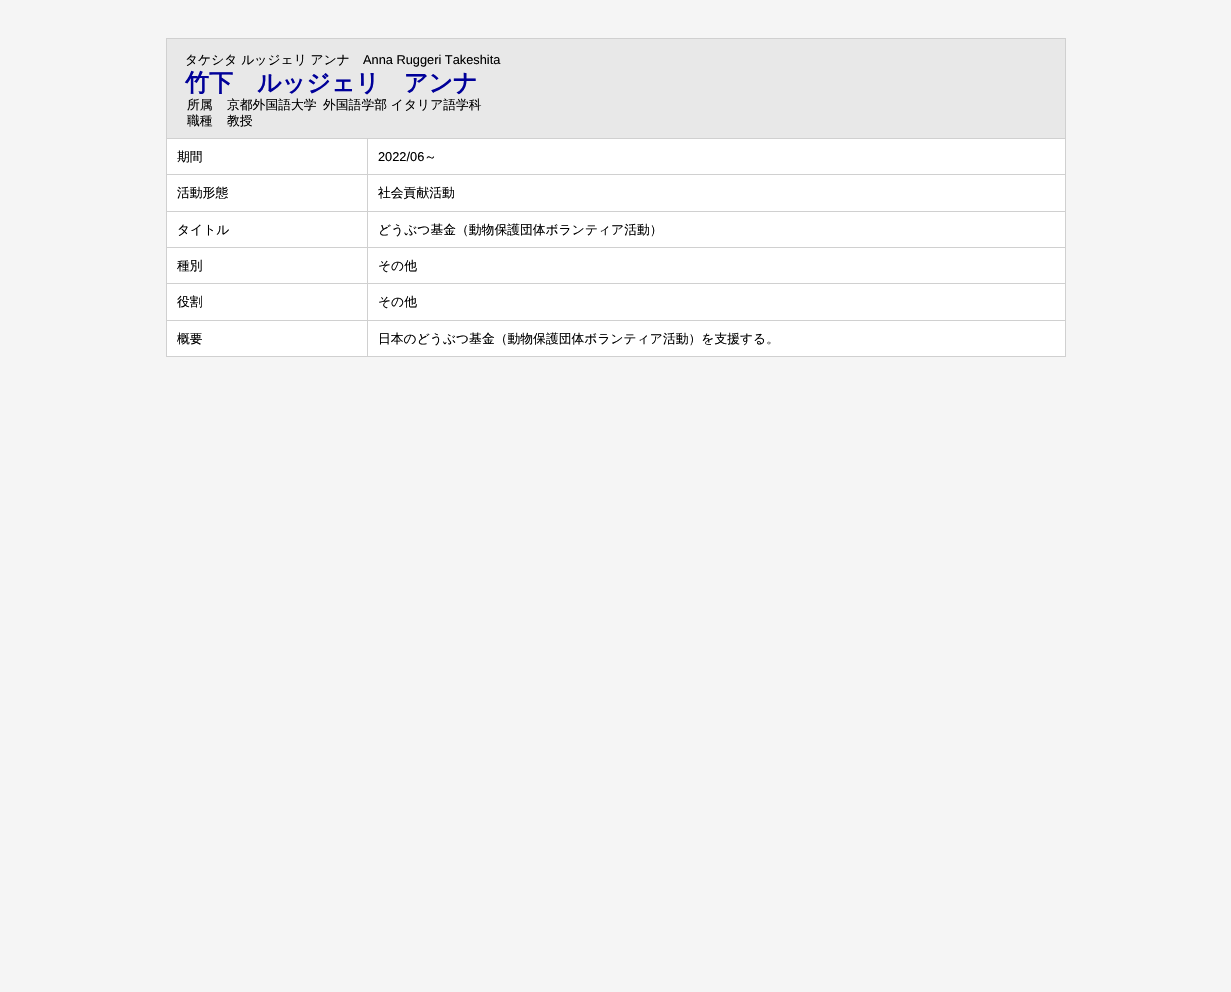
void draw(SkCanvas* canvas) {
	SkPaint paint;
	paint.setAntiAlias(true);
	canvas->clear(0xfff5f5f5);
	paint.setColor(0xffd0d0d0);
	canvas->drawRect(SkRect::MakeXYWH(166, 38, 900, 319), paint);
	paint.setColor(0xffe8e8e8);
	canvas->drawRect(SkRect::MakeXYWH(167, 39, 898, 99), paint);
	SkFont f1(fontMgr->matchFamilyStyle("WenQuanYi Zen Hei", SkFontStyle(500, SkFontStyle::kNormal_Width, SkFontStyle::kUpright_Slant)), 12.8);
	f1.setSubpixel(true);
	paint.setColor(0xff000000);
	canvas->drawString("タケシタ ルッジェリ アンナ", 185, 64, f1, paint);
	SkFont f2(fontMgr->matchFamilyStyle("Liberation Sans", SkFontStyle::Normal()), 12.8);
	f2.setSubpixel(true);
	canvas->drawString("Anna Ruggeri Takeshita", 363, 64, f2, paint);
	SkFont f3(fontMgr->matchFamilyStyle("WenQuanYi Zen Hei", SkFontStyle::Bold()), 24);
	f3.setSubpixel(true);
	paint.setColor(0xff000099);
	canvas->drawString("竹下　ルッジェリ　アンナ", 185, 91, f3, paint);
	paint.setColor(0xff000000);
	canvas->drawString("所属", 187, 109, f1, paint);
	canvas->drawString("京都外国語大学", 227, 109, f1, paint);
	canvas->drawString("外国語学部 イタリア語学科", 323, 109, f1, paint);
	canvas->drawString("職種", 187, 125, f1, paint);
	canvas->drawString("教授", 227, 125, f1, paint);
	paint.setColor(0xffffffff);
	canvas->drawRect(SkRect::MakeXYWH(167, 139, 200, 35), paint);
	paint.setColor(0xff000000);
	canvas->drawString("期間", 177, 161, f1, paint);
	paint.setColor(0xffffffff);
	canvas->drawRect(SkRect::MakeXYWH(368, 139, 697, 35), paint);
	paint.setColor(0xff000000);
	canvas->drawString("2022/06", 378, 161, f2, paint);
	canvas->drawString("～", 424, 161, f1, paint);
	paint.setColor(0xffffffff);
	canvas->drawRect(SkRect::MakeXYWH(167, 175, 200, 36), paint);
	paint.setColor(0xff000000);
	canvas->drawString("活動形態", 177, 197, f1, paint);
	paint.setColor(0xffffffff);
	canvas->drawRect(SkRect::MakeXYWH(368, 175, 697, 36), paint);
	paint.setColor(0xff000000);
	canvas->drawString("社会貢献活動", 378, 197, f1, paint);
	paint.setColor(0xffffffff);
	canvas->drawRect(SkRect::MakeXYWH(167, 212, 200, 35), paint);
	paint.setColor(0xff000000);
	canvas->drawString("タイトル", 177, 234, f1, paint);
	paint.setColor(0xffffffff);
	canvas->drawRect(SkRect::MakeXYWH(368, 212, 697, 35), paint);
	paint.setColor(0xff000000);
	canvas->drawString("どうぶつ基金（動物保護団体ボランティア活動）", 378, 234, f1, paint);
	paint.setColor(0xffffffff);
	canvas->drawRect(SkRect::MakeXYWH(167, 248, 200, 35), paint);
	paint.setColor(0xff000000);
	canvas->drawString("種別", 177, 270, f1, paint);
	paint.setColor(0xffffffff);
	canvas->drawRect(SkRect::MakeXYWH(368, 248, 697, 35), paint);
	paint.setColor(0xff000000);
	canvas->drawString("その他", 378, 270, f1, paint);
	paint.setColor(0xffffffff);
	canvas->drawRect(SkRect::MakeXYWH(167, 284, 200, 36), paint);
	paint.setColor(0xff000000);
	canvas->drawString("役割", 177, 306, f1, paint);
	paint.setColor(0xffffffff);
	canvas->drawRect(SkRect::MakeXYWH(368, 284, 697, 36), paint);
	paint.setColor(0xff000000);
	canvas->drawString("その他", 378, 306, f1, paint);
	paint.setColor(0xffffffff);
	canvas->drawRect(SkRect::MakeXYWH(167, 321, 200, 35), paint);
	paint.setColor(0xff000000);
	canvas->drawString("概要", 177, 343, f1, paint);
	paint.setColor(0xffffffff);
	canvas->drawRect(SkRect::MakeXYWH(368, 321, 697, 35), paint);
	paint.setColor(0xff000000);
	canvas->drawString("日本のどうぶつ基金（動物保護団体ボランティア活動）を支援する。", 378, 343, f1, paint);
}
